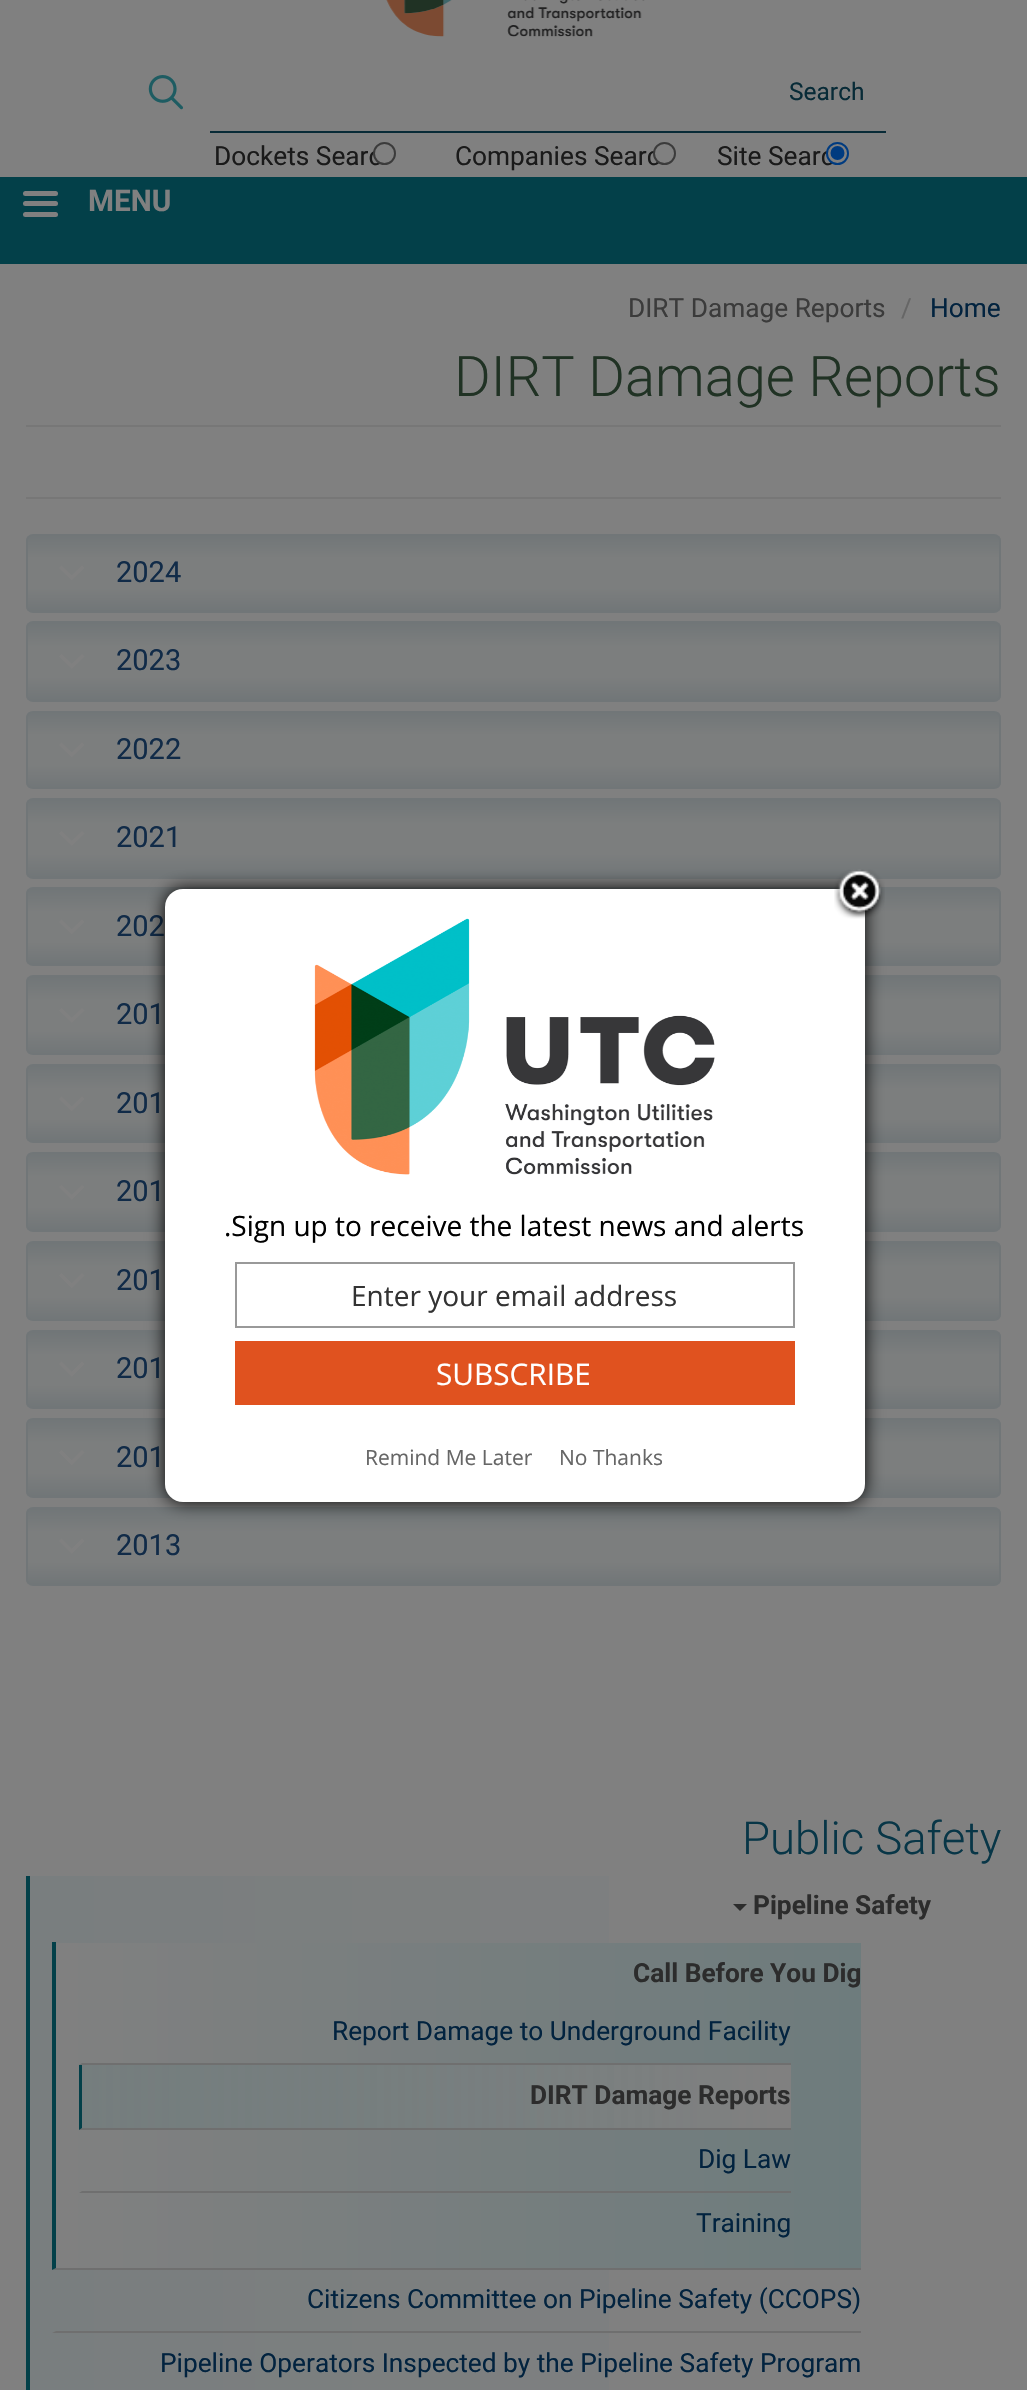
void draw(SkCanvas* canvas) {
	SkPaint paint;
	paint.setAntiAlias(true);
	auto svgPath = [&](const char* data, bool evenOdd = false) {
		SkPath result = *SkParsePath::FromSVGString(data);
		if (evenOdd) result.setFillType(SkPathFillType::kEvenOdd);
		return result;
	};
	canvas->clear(0xff808080);
	canvas->drawImageRect(SkImages::DeferredFromEncodedData(SkData::MakeFromFileName("img1.png")), SkRect::MakeXYWH(386, 0, 259, 37), SkSamplingOptions());
	canvas->drawImageRect(SkImages::DeferredFromEncodedData(SkData::MakeFromFileName("img2.png")), SkRect::MakeXYWH(148, 75, 35, 35), SkSamplingOptions());
	paint.setColor(0xff082b37);
	canvas->drawRect(SkRect::MakeXYWH(210, 131, 676, 2), paint);
	SkFont f1(fontMgr->matchFamilyStyle("Roboto", SkFontStyle::Normal()), 24.5);
	f1.setSubpixel(true);
	canvas->drawString("Search", 789, 100, f1, paint);
	SkFont f2(fontMgr->matchFamilyStyle("Roboto", SkFontStyle::Normal()), 26.25);
	f2.setSubpixel(true);
	paint.setColor(0xff1a1a1a);
	canvas->drawString("Dockets Searc", 214, 165, f2, paint);
	paint.setColor(0xff808080);
	canvas->drawCircle(384.5, 153.5, 10.5, paint);
	paint.setStroke(true);
	paint.setStrokeWidth(2);
	paint.setColor(0xff3b3b3b);
	canvas->drawCircle(384.5, 153.5, 10.5, paint);
	paint.setStroke(false);
	paint.setColor(0xff1a1a1a);
	canvas->drawString("Companies Searc", 455, 165, f2, paint);
	paint.setColor(0xff808080);
	canvas->drawCircle(664.5, 153.5, 10.5, paint);
	paint.setStroke(true);
	paint.setColor(0xff3b3b3b);
	canvas->drawCircle(664.5, 153.5, 10.5, paint);
	paint.setStroke(false);
	paint.setColor(0xff1a1a1a);
	canvas->drawString("Site Searc", 717, 165, f2, paint);
	paint.setColor(0xff808080);
	canvas->drawCircle(837.5, 153.5, 10.5, paint);
	paint.setStroke(true);
	paint.setColor(0xff003b80);
	canvas->drawCircle(837.5, 153.5, 10.5, paint);
	paint.setStroke(false);
	canvas->drawCircle(837.5, 153, 7, paint);
	paint.setColor(0xff034049);
	canvas->drawRect(SkRect::MakeXYWH(0, 177, 1027, 87), paint);
	paint.setColor(0xff808080);
	canvas->drawRoundRect(SkRect::MakeXYWH(23, 191, 35, 5), 2.5, 2.5, paint);
	SkFont f3(fontMgr->matchFamilyStyle("Roboto", SkFontStyle::Bold()), 29.75);
	f3.setSubpixel(true);
	canvas->drawString("MENU", 88, 211, f3, paint);
	canvas->drawRoundRect(SkRect::MakeXYWH(23, 201, 35, 5), 2.5, 2.5, paint);
	canvas->drawRoundRect(SkRect::MakeXYWH(23, 212, 35, 5), 2.5, 2.5, paint);
	paint.setColor(0xff3b3b3b);
	canvas->drawString("DIRT Damage Reports", 628, 317, f2, paint);
	paint.setColor(0xff666666);
	canvas->drawString("/", 901, 317, f2, paint);
	paint.setColor(0xff02233f);
	canvas->drawString("Home", 930, 317, f2, paint);
	paint.setColor(0xff777777);
	canvas->drawRect(SkRect::MakeXYWH(26, 425, 975, 2), paint);
	SkFont f4(fontMgr->matchFamilyStyle("Roboto", SkFontStyle(300, SkFontStyle::kNormal_Width, SkFontStyle::kUpright_Slant)), 56);
	f4.setSubpixel(true);
	paint.setColor(0xff203224);
	canvas->drawString("DIRT Damage Reports", 454, 396, f4, paint);
	paint.setColor(0xff777777);
	canvas->drawRect(SkRect::MakeXYWH(26, 497, 975, 2), paint);
	canvas->save();
	canvas->clipPath(svgPath("M33 534H994C998 534 1001 537 1001 541V606C1001 610 998 613 994 613H33C29 613 26 610 26 606V541C26 537 29 534 33 534Z"), true);
	{
		const SkColor colors[] = {0xff717678, 0xff7c7e7e, 0xff7c7e7e, 0xff717678};
		const float stops[] = {0, 0.31, 0.7, 1};
		const SkPoint ends[] = {{514, 535}, {514, 611}};
		paint.setShader(SkGradientShader::MakeLinear(ends, colors, stops, 4, SkTileMode::kClamp));
		paint.setAlpha(255);
	}
	canvas->drawRect(SkRect::MakeXYWH(26, 536, 975, 75), paint);
	canvas->restore();
	paint.setStroke(true);
	paint.setShader(nullptr);
	paint.setColor(0xff717678);
	canvas->drawRoundRect(SkRect::MakeXYWH(27, 535, 973, 77), 6, 6, paint);
	paint.setStroke(false);
	paint.setColor(0xff808080);
	canvas->drawPath(svgPath("M84.5 568L72 580L69.5 577.5L82 565.5Z"), paint);
	canvas->drawPath(svgPath("M71.5 580L59 568L61.5 565.5L74 577.5Z"), paint);
	SkFont f5(fontMgr->matchFamilyStyle("Roboto", SkFontStyle::Normal()), 29);
	f5.setSubpixel(true);
	paint.setColor(0xff112b48);
	canvas->drawString("2024", 116, 582, f5, paint);
	canvas->save();
	canvas->clipPath(svgPath("M33 621H994C998 621 1001 624 1001 628V695C1001 699 998 702 994 702H33C29 702 26 699 26 695V628C26 624 29 621 33 621Z"), true);
	{
		const SkColor colors[] = {0xff717678, 0xff7c7e7e, 0xff7c7e7e, 0xff717678};
		const float stops[] = {0, 0.31, 0.7, 1};
		const SkPoint ends[] = {{514, 623}, {514, 700}};
		paint.setShader(SkGradientShader::MakeLinear(ends, colors, stops, 4, SkTileMode::kClamp));
		paint.setAlpha(255);
	}
	canvas->drawRect(SkRect::MakeXYWH(26, 623, 975, 77), paint);
	canvas->restore();
	paint.setStroke(true);
	paint.setShader(nullptr);
	paint.setColor(0xff717678);
	canvas->drawRoundRect(SkRect::MakeXYWH(27, 622, 973, 79), 6, 6, paint);
	paint.setStroke(false);
	paint.setColor(0xff808080);
	canvas->drawPath(svgPath("M84.5 656.5L72 668.5L69.5 666L82 654Z"), paint);
	canvas->drawPath(svgPath("M71.5 668.5L59 656.5L61.5 654L74 666Z"), paint);
	paint.setColor(0xff112b48);
	canvas->drawString("2023", 116, 670, f5, paint);
	canvas->save();
	canvas->clipPath(svgPath("M33 711H994C998 711 1001 714 1001 718V782C1001 786 998 789 994 789H33C29 789 26 786 26 782V718C26 714 29 711 33 711Z"), true);
	{
		const SkColor colors[] = {0xff717678, 0xff7c7e7e, 0xff7c7e7e, 0xff717678};
		const float stops[] = {0, 0.31, 0.7, 1};
		const SkPoint ends[] = {{514, 712}, {514, 788}};
		paint.setShader(SkGradientShader::MakeLinear(ends, colors, stops, 4, SkTileMode::kClamp));
		paint.setAlpha(255);
	}
	canvas->drawRect(SkRect::MakeXYWH(26, 712, 975, 76), paint);
	canvas->restore();
	paint.setStroke(true);
	paint.setShader(nullptr);
	paint.setColor(0xff717678);
	canvas->drawRoundRect(SkRect::MakeXYWH(27, 712, 973, 76), 6, 6, paint);
	paint.setStroke(false);
	paint.setColor(0xff808080);
	canvas->drawPath(svgPath("M84.5 745L72 757L69.5 754.5L82 742.5Z"), paint);
	canvas->drawPath(svgPath("M71.5 757L59 745L61.5 742.5L74 754.5Z"), paint);
	paint.setColor(0xff112b48);
	canvas->drawString("2022", 116, 759, f5, paint);
	canvas->save();
	canvas->clipPath(svgPath("M33 798H994C998 798 1001 801 1001 805V872C1001 876 998 879 994 879H33C29 879 26 876 26 872V805C26 801 29 798 33 798Z"), true);
	{
		const SkColor colors[] = {0xff717678, 0xff7c7e7e, 0xff7c7e7e, 0xff717678};
		const float stops[] = {0, 0.31, 0.7, 1};
		const SkPoint ends[] = {{514, 800}, {514, 877}};
		paint.setShader(SkGradientShader::MakeLinear(ends, colors, stops, 4, SkTileMode::kClamp));
		paint.setAlpha(255);
	}
	canvas->drawRect(SkRect::MakeXYWH(26, 800, 975, 77), paint);
	canvas->restore();
	paint.setStroke(true);
	paint.setShader(nullptr);
	paint.setColor(0xff717678);
	canvas->drawRoundRect(SkRect::MakeXYWH(27, 799, 973, 79), 6, 6, paint);
	paint.setStroke(false);
	paint.setColor(0xff808080);
	canvas->drawPath(svgPath("M84.5 833.5L72 845.5L69.5 843L82 831Z"), paint);
	canvas->drawPath(svgPath("M71.5 845.5L59 833.5L61.5 831L74 843Z"), paint);
	paint.setColor(0xff112b48);
	canvas->drawString("2021", 116, 847, f5, paint);
	canvas->save();
	canvas->clipPath(svgPath("M33 887H994C998 887 1001 890 1001 894V959C1001 963 998 966 994 966H33C29 966 26 963 26 959V894C26 890 29 887 33 887Z"), true);
	{
		const SkColor colors[] = {0xff717678, 0xff7c7e7e, 0xff7c7e7e, 0xff717678};
		const float stops[] = {0, 0.31, 0.7, 1};
		const SkPoint ends[] = {{514, 889}, {514, 964}};
		paint.setShader(SkGradientShader::MakeLinear(ends, colors, stops, 4, SkTileMode::kClamp));
		paint.setAlpha(255);
	}
	canvas->drawRect(SkRect::MakeXYWH(26, 889, 975, 75), paint);
	canvas->restore();
	paint.setStroke(true);
	paint.setShader(nullptr);
	paint.setColor(0xff717678);
	canvas->drawRoundRect(SkRect::MakeXYWH(27, 888, 973, 77), 6, 6, paint);
	paint.setStroke(false);
	paint.setColor(0xff808080);
	canvas->drawPath(svgPath("M84.5 922L72 934L69.5 931.5L82 919.5Z"), paint);
	canvas->drawPath(svgPath("M71.5 934L59 922L61.5 919.5L74 931.5Z"), paint);
	paint.setColor(0xff112b48);
	canvas->drawString("202", 116, 936, f5, paint);
	canvas->save();
	canvas->clipPath(svgPath("M33 975H994C998 975 1001 978 1001 982V1048C1001 1052 998 1055 994 1055H33C29 1055 26 1052 26 1048V982C26 978 29 975 33 975Z"), true);
	{
		const SkColor colors[] = {0xff717678, 0xff7c7e7e, 0xff7c7e7e, 0xff717678};
		const float stops[] = {0, 0.31, 0.7, 1};
		const SkPoint ends[] = {{514, 977}, {514, 1054}};
		paint.setShader(SkGradientShader::MakeLinear(ends, colors, stops, 4, SkTileMode::kClamp));
		paint.setAlpha(255);
	}
	canvas->drawRect(SkRect::MakeXYWH(26, 977, 975, 77), paint);
	canvas->restore();
	paint.setStroke(true);
	paint.setShader(nullptr);
	paint.setColor(0xff717678);
	canvas->drawRoundRect(SkRect::MakeXYWH(27, 976, 973, 78), 6, 6, paint);
	paint.setStroke(false);
	paint.setColor(0xff808080);
	canvas->drawPath(svgPath("M84.5 1010.5L72 1022.5L69.5 1020L82 1008Z"), paint);
	canvas->drawPath(svgPath("M71.5 1022.5L59 1010.5L61.5 1008L74 1020Z"), paint);
	paint.setColor(0xff112b48);
	canvas->drawString("201", 116, 1024, f5, paint);
	canvas->save();
	canvas->clipPath(svgPath("M33 1064H994C998 1064 1001 1067 1001 1071V1136C1001 1140 998 1143 994 1143H33C29 1143 26 1140 26 1136V1071C26 1067 29 1064 33 1064Z"), true);
	{
		const SkColor colors[] = {0xff717678, 0xff7c7e7e, 0xff7c7e7e, 0xff717678};
		const float stops[] = {0, 0.31, 0.7, 1};
		const SkPoint ends[] = {{514, 1066}, {514, 1141}};
		paint.setShader(SkGradientShader::MakeLinear(ends, colors, stops, 4, SkTileMode::kClamp));
		paint.setAlpha(255);
	}
	canvas->drawRect(SkRect::MakeXYWH(26, 1066, 975, 75), paint);
	canvas->restore();
	paint.setStroke(true);
	paint.setShader(nullptr);
	paint.setColor(0xff717678);
	canvas->drawRoundRect(SkRect::MakeXYWH(27, 1065, 973, 77), 6, 6, paint);
	paint.setStroke(false);
	paint.setColor(0xff808080);
	canvas->drawPath(svgPath("M84.5 1099L72 1111L69.5 1108.5L82 1096.5Z"), paint);
	canvas->drawPath(svgPath("M71.5 1111L59 1099L61.5 1096.5L74 1108.5Z"), paint);
	paint.setColor(0xff112b48);
	canvas->drawString("201", 116, 1113, f5, paint);
	canvas->save();
	canvas->clipPath(svgPath("M33 1152H994C998 1152 1001 1155 1001 1159V1225C1001 1229 998 1232 994 1232H33C29 1232 26 1229 26 1225V1159C26 1155 29 1152 33 1152Z"), true);
	{
		const SkColor colors[] = {0xff717678, 0xff7c7e7e, 0xff7c7e7e, 0xff717678};
		const float stops[] = {0, 0.31, 0.7, 1};
		const SkPoint ends[] = {{514, 1153}, {514, 1230}};
		paint.setShader(SkGradientShader::MakeLinear(ends, colors, stops, 4, SkTileMode::kClamp));
		paint.setAlpha(255);
	}
	canvas->drawRect(SkRect::MakeXYWH(26, 1153, 975, 77), paint);
	canvas->restore();
	paint.setStroke(true);
	paint.setShader(nullptr);
	paint.setColor(0xff717678);
	canvas->drawRoundRect(SkRect::MakeXYWH(27, 1153, 973, 78), 6, 6, paint);
	paint.setStroke(false);
	paint.setColor(0xff808080);
	canvas->drawPath(svgPath("M84.5 1187L72 1199.5L69.5 1197L82 1185Z"), paint);
	canvas->drawPath(svgPath("M71.5 1199.5L59 1187L61.5 1185L74 1197Z"), paint);
	paint.setColor(0xff112b48);
	canvas->drawString("201", 116, 1201, f5, paint);
	canvas->save();
	canvas->clipPath(svgPath("M33 1241H994C998 1241 1001 1244 1001 1248V1314C1001 1318 998 1321 994 1321H33C29 1321 26 1318 26 1314V1248C26 1244 29 1241 33 1241Z"), true);
	{
		const SkColor colors[] = {0xff717678, 0xff7c7e7e, 0xff7c7e7e, 0xff717678};
		const float stops[] = {0, 0.31, 0.7, 1};
		const SkPoint ends[] = {{514, 1243}, {514, 1320}};
		paint.setShader(SkGradientShader::MakeLinear(ends, colors, stops, 4, SkTileMode::kClamp));
		paint.setAlpha(255);
	}
	canvas->drawRect(SkRect::MakeXYWH(26, 1243, 975, 77), paint);
	canvas->restore();
	paint.setStroke(true);
	paint.setShader(nullptr);
	paint.setColor(0xff717678);
	canvas->drawRoundRect(SkRect::MakeXYWH(27, 1242, 973, 78), 6, 6, paint);
	paint.setStroke(false);
	paint.setColor(0xff808080);
	canvas->drawPath(svgPath("M84.5 1275.5L72 1288L69.5 1285.5L82 1273Z"), paint);
	canvas->drawPath(svgPath("M71.5 1288L59 1275.5L61.5 1273L74 1285.5Z"), paint);
	paint.setColor(0xff112b48);
	canvas->drawString("201", 116, 1290, f5, paint);
	canvas->save();
	canvas->clipPath(svgPath("M33 1330H994C998 1330 1001 1333 1001 1337V1402C1001 1406 998 1409 994 1409H33C29 1409 26 1406 26 1402V1337C26 1333 29 1330 33 1330Z"), true);
	{
		const SkColor colors[] = {0xff717678, 0xff7c7e7e, 0xff7c7e7e, 0xff717678};
		const float stops[] = {0, 0.31, 0.7, 1};
		const SkPoint ends[] = {{514, 1332}, {514, 1407}};
		paint.setShader(SkGradientShader::MakeLinear(ends, colors, stops, 4, SkTileMode::kClamp));
		paint.setAlpha(255);
	}
	canvas->drawRect(SkRect::MakeXYWH(26, 1332, 975, 75), paint);
	canvas->restore();
	paint.setStroke(true);
	paint.setShader(nullptr);
	paint.setColor(0xff717678);
	canvas->drawRoundRect(SkRect::MakeXYWH(27, 1331, 973, 77), 6, 6, paint);
	paint.setStroke(false);
	paint.setColor(0xff808080);
	canvas->drawPath(svgPath("M84.5 1364L72 1376.5L69.5 1374L82 1361.5Z"), paint);
	canvas->drawPath(svgPath("M71.5 1376.5L59 1364L61.5 1361.5L74 1374Z"), paint);
	paint.setColor(0xff112b48);
	canvas->drawString("201", 116, 1378, f5, paint);
	canvas->save();
	canvas->clipPath(svgPath("M33 1418H994C998 1418 1001 1421 1001 1425V1491C1001 1495 998 1498 994 1498H33C29 1498 26 1495 26 1491V1425C26 1421 29 1418 33 1418Z"), true);
	{
		const SkColor colors[] = {0xff717678, 0xff7c7e7e, 0xff7c7e7e, 0xff717678};
		const float stops[] = {0, 0.31, 0.7, 1};
		const SkPoint ends[] = {{514, 1419}, {514, 1496}};
		paint.setShader(SkGradientShader::MakeLinear(ends, colors, stops, 4, SkTileMode::kClamp));
		paint.setAlpha(255);
	}
	canvas->drawRect(SkRect::MakeXYWH(26, 1419, 975, 77), paint);
	canvas->restore();
	paint.setStroke(true);
	paint.setShader(nullptr);
	paint.setColor(0xff717678);
	canvas->drawRoundRect(SkRect::MakeXYWH(27, 1419, 973, 78), 6, 6, paint);
	paint.setStroke(false);
	paint.setColor(0xff808080);
	canvas->drawPath(svgPath("M84.5 1452.5L72 1465L69.5 1462.5L82 1450Z"), paint);
	canvas->drawPath(svgPath("M71.5 1465L59 1452.5L61.5 1450L74 1462.5Z"), paint);
	paint.setColor(0xff112b48);
	canvas->drawString("201", 116, 1467, f5, paint);
	canvas->save();
	canvas->clipPath(svgPath("M33 1507H994C998 1507 1001 1510 1001 1514V1579C1001 1583 998 1586 994 1586H33C29 1586 26 1583 26 1579V1514C26 1510 29 1507 33 1507Z"), true);
	{
		const SkColor colors[] = {0xff717678, 0xff7c7e7e, 0xff7c7e7e, 0xff717678};
		const float stops[] = {0, 0.31, 0.7, 1};
		const SkPoint ends[] = {{514, 1509}, {514, 1584}};
		paint.setShader(SkGradientShader::MakeLinear(ends, colors, stops, 4, SkTileMode::kClamp));
		paint.setAlpha(255);
	}
	canvas->drawRect(SkRect::MakeXYWH(26, 1509, 975, 75), paint);
	canvas->restore();
	paint.setStroke(true);
	paint.setShader(nullptr);
	paint.setColor(0xff717678);
	canvas->drawRoundRect(SkRect::MakeXYWH(27, 1508, 973, 77), 6, 6, paint);
	paint.setStroke(false);
	paint.setColor(0xff808080);
	canvas->drawPath(svgPath("M84.5 1541L72 1553.5L69.5 1551L82 1538.5Z"), paint);
	canvas->drawPath(svgPath("M71.5 1553.5L59 1541L61.5 1538.5L74 1551Z"), paint);
	paint.setColor(0xff112b48);
	canvas->drawString("2013", 116, 1555, f5, paint);
	SkFont f6(fontMgr->matchFamilyStyle("Roboto", SkFontStyle(300, SkFontStyle::kNormal_Width, SkFontStyle::kUpright_Slant)), 45.5);
	f6.setSubpixel(true);
	paint.setColor(0xff083647);
	canvas->drawString("Public Safety", 742, 1854, f6, paint);
	{
		const SkColor colors[] = {0xff797e7f, 0xff808080};
		const float stops[] = {0, 1};
		const SkPoint ends[] = {{30, 2142}, {931, 2142}};
		paint.setShader(SkGradientShader::MakeLinear(ends, colors, stops, 2, SkTileMode::kClamp));
		paint.setAlpha(255);
	}
	canvas->drawRect(SkRect::MakeXYWH(30, 1876, 579, 514), paint);
	paint.setShader(nullptr);
	paint.setColor(0xff034049);
	canvas->drawPath(svgPath("M26 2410V1876H30V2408Z"), paint);
	paint.setColor(0xff2c2c2c);
	canvas->drawPath(svgPath("M733 1904H747L740 1911Z"), paint);
	SkFont f7(fontMgr->matchFamilyStyle("Roboto", SkFontStyle::Bold()), 26.25);
	f7.setSubpixel(true);
	canvas->drawString("Pipeline Safety", 753, 1914, f7, paint);
	{
		const SkColor colors[] = {0xff808080, 0xff6e7c7d};
		const float stops[] = {0, 1};
		const SkPoint ends[] = {{56, 2105}, {861, 2105}};
		paint.setShader(SkGradientShader::MakeLinear(ends, colors, stops, 2, SkTileMode::kClamp));
		paint.setAlpha(255);
	}
	canvas->drawRect(SkRect::MakeXYWH(56, 1943, 805, 325), paint);
	paint.setShader(nullptr);
	paint.setColor(0xff6f6f6f);
	canvas->drawPath(svgPath("M861 2270H52L56 2268H861Z"), paint);
	paint.setColor(0xff034049);
	canvas->drawPath(svgPath("M52 2270V1942H56V2268Z"), paint);
	paint.setColor(0xff2c2c2c);
	canvas->drawString("Call Before You Dig", 633, 1982, f7, paint);
	paint.setColor(0xff6f6f6f);
	canvas->drawPath(svgPath("M791 2065H79L82 2063H791Z"), paint);
	paint.setColor(0xff02233f);
	canvas->drawString("Report Damage to Underground Facility", 332, 2040, f2, paint);
	{
		const SkColor colors[] = {0x996e7c7d, 0xff808080};
		const float stops[] = {0, 1};
		const SkPoint ends[] = {{82, 2097}, {791, 2097}};
		paint.setShader(SkGradientShader::MakeLinear(ends, colors, stops, 2, SkTileMode::kClamp));
		paint.setAlpha(255);
	}
	canvas->drawRect(SkRect::MakeXYWH(82, 2065, 709, 63), paint);
	paint.setShader(nullptr);
	paint.setColor(0xff6f6f6f);
	canvas->drawPath(svgPath("M791 2130H79L82 2128H791Z"), paint);
	paint.setColor(0xff034049);
	canvas->drawPath(svgPath("M79 2130V2065H82V2128Z"), paint);
	paint.setColor(0xff2c2c2c);
	canvas->drawString("DIRT Damage Reports", 530, 2104, f7, paint);
	paint.setColor(0xff6f6f6f);
	canvas->drawPath(svgPath("M791 2193H79L82 2191H791Z"), paint);
	paint.setColor(0xff02233f);
	canvas->drawString("Dig Law", 698, 2168, f2, paint);
	canvas->drawString("Training", 696, 2232, f2, paint);
	paint.setColor(0xff6f6f6f);
	canvas->drawPath(svgPath("M861 2333H52L56 2331H861Z"), paint);
	paint.setColor(0xff02233f);
	canvas->drawString("Citizens Committee on Pipeline Safety (CCOPS)", 307, 2308, f2, paint);
	canvas->drawString("Pipeline Operators Inspected by the Pipeline Safety Program", 160, 2372, f2, paint);
	paint.setColor(0xff000000);
	paint.setMaskFilter(SkMaskFilter::MakeBlur(kNormal_SkBlurStyle, 9));
	canvas->drawRoundRect(SkRect::MakeXYWH(165, 889, 700, 613), 18, 18, paint);
	paint.setMaskFilter(nullptr);
	paint.setColor(0xffffffff);
	canvas->drawRoundRect(SkRect::MakeXYWH(165, 889, 700, 613), 18, 18, paint);
	canvas->drawImageRect(SkImages::DeferredFromEncodedData(SkData::MakeFromFileName("img3.png")), SkRect::MakeXYWH(834, 869, 51, 50), SkSamplingOptions());
	canvas->drawImageRect(SkImages::DeferredFromEncodedData(SkData::MakeFromFileName("img4.png")), SkRect::MakeXYWH(314, 918, 401, 257), SkSamplingOptions());
	SkFont f8(fontMgr->matchFamilyStyle("Open Sans", SkFontStyle::Normal()), 28);
	f8.setSubpixel(true);
	paint.setColor(0xff000000);
	canvas->drawString(".Sign up to receive the latest news and alerts", 224, 1236, f8, paint);
	paint.setStroke(true);
	paint.setColor(0xff999999);
	canvas->drawRect(SkRect::MakeXYWH(236, 1263, 558, 64), paint);
	paint.setStroke(false);
	paint.setColor(0xff333333);
	canvas->drawString("Enter your email address", 351, 1306, f8, paint);
	paint.setColor(0xffe0521f);
	canvas->drawRect(SkRect::MakeXYWH(235, 1341, 560, 64), paint);
	SkFont f9(fontMgr->matchFamilyStyle("Open Sans", SkFontStyle::Normal()), 29.75);
	f9.setSubpixel(true);
	paint.setColor(0xffffffff);
	canvas->drawString("SUBSCRIBE", 436, 1385, f9, paint);
	SkFont f10(fontMgr->matchFamilyStyle("Open Sans", SkFontStyle::Normal()), 21);
	f10.setSubpixel(true);
	paint.setColor(0xff666666);
	canvas->drawString("Remind Me Later", 365, 1465, f10, paint);
	canvas->drawString("No Thanks", 559, 1465, f10, paint);
}
